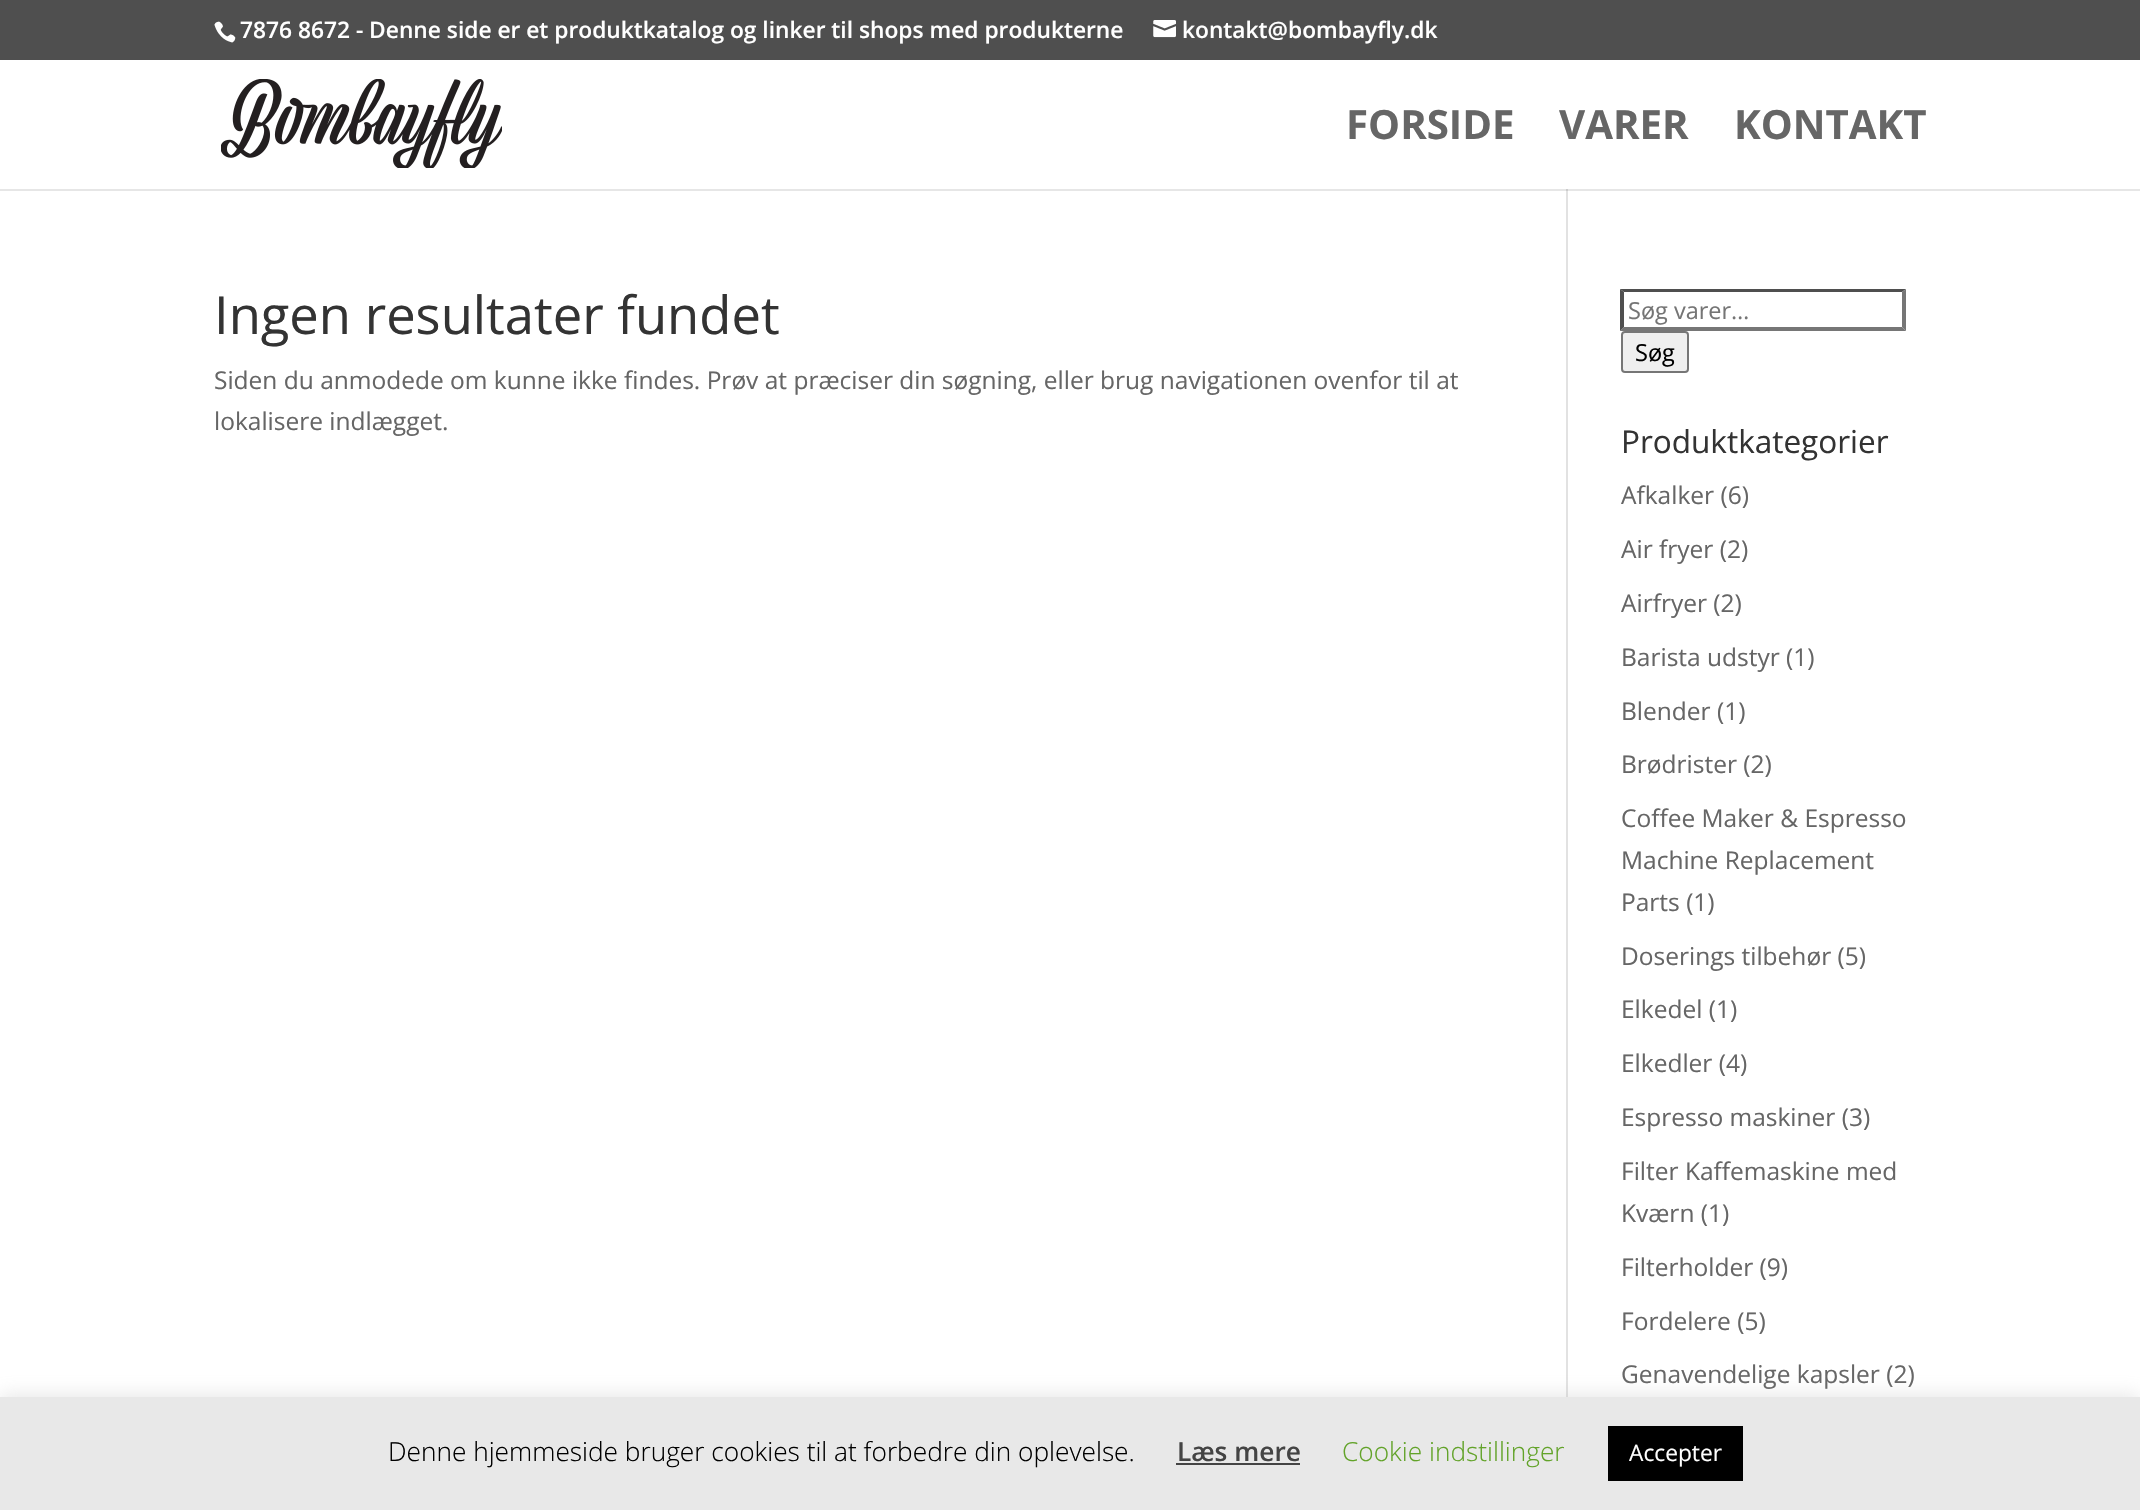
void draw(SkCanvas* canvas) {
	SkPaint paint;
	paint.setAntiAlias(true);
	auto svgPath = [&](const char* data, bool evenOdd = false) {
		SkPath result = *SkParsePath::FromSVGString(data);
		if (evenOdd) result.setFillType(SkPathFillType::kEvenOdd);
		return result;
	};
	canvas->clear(0xffffffff);
	paint.setColor(0xffe6e6e6);
	canvas->drawRect(SkRect::MakeXYWH(0, 189, 2140, 2), paint);
	paint.setColor(0xff4f4f4f);
	canvas->drawRect(SkRect::MakeXYWH(0, 0, 2140, 60), paint);
	canvas->drawImageRect(SkImages::DeferredFromEncodedData(SkData::MakeFromFileName("img1.png")), SkRect::MakeXYWH(214, 21, 22, 22), SkSamplingOptions());
	SkFont f1(fontMgr->matchFamilyStyle("Open Sans", SkFontStyle(600, SkFontStyle::kNormal_Width, SkFontStyle::kUpright_Slant)), 22.75);
	f1.setSubpixel(true);
	paint.setColor(0xffffffff);
	canvas->drawString("7876 8672 - Denne side er et produktkatalog og linker til shops med produkterne", 240, 38, f1, paint);
	canvas->drawImageRect(SkImages::DeferredFromEncodedData(SkData::MakeFromFileName("img2.png")), SkRect::MakeXYWH(1153, 20, 23, 18), SkSamplingOptions());
	canvas->drawString("kontakt@bombayfly.dk", 1182, 38, f1, paint);
	paint.setColor(0xffe2e2e2);
	canvas->drawRect(SkRect::MakeXYWH(1566, 187, 2, 1210), paint);
	paint.setColor(0xffffffff);
	canvas->drawRect(SkRect::MakeXYWH(1566, 187, 2, 2), paint);
	canvas->drawImageRect(SkImages::DeferredFromEncodedData(SkData::MakeFromFileName("img3.png")), SkRect::MakeXYWH(221, 79, 281, 89), SkSamplingOptions());
	SkFont f2(fontMgr->matchFamilyStyle("Open Sans", SkFontStyle::Bold()), 40.25);
	f2.setSubpixel(true);
	paint.setColor(0xff666666);
	canvas->drawString("FORSIDE", 1346, 139, f2, paint);
	canvas->drawString("VARER", 1559, 139, f2, paint);
	canvas->drawString("KONTAKT", 1734, 139, f2, paint);
	paint.setColor(0xffcbcbcb);
	canvas->drawRect(SkRect::MakeXYWH(1566, 189, 2, 2), paint);
	SkFont f3(fontMgr->matchFamilyStyle("Open Sans", SkFontStyle::Normal()), 52.5);
	f3.setSubpixel(true);
	paint.setColor(0xff333333);
	canvas->drawString("Ingen resultater fundet", 214, 334, f3, paint);
	SkFont f4(fontMgr->matchFamilyStyle("Open Sans", SkFontStyle::Normal()), 24.5);
	f4.setSubpixel(true);
	paint.setColor(0xff666666);
	canvas->drawString("Siden du anmodede om kunne ikke findes. Prøv at præciser din søgning, eller brug navigationen ovenfor til at", 214, 389, f4, paint);
	canvas->drawString("lokalisere indlægget.", 214, 430, f4, paint);
	paint.setColor(0xff4f4f4f);
	canvas->drawPath(svgPath("M1620 289H1906L1902 292H1624Z"), paint);
	paint.setColor(0xff767676);
	canvas->drawPath(svgPath("M1906 289V331L1902 327V292Z"), paint);
	canvas->drawPath(svgPath("M1906 331H1620L1624 327H1902Z"), paint);
	paint.setColor(0xff4f4f4f);
	canvas->drawPath(svgPath("M1620 331V289L1624 292V327Z"), paint);
	SkFont f5(fontMgr->matchFamilyStyle("Open Sans", SkFontStyle::Normal()), 23.5);
	f5.setSubpixel(true);
	paint.setColor(0xff757575);
	canvas->drawString("Søg varer…", 1628, 319, f5, paint);
	paint.setColor(0xffefefef);
	canvas->drawRoundRect(SkRect::MakeXYWH(1622, 332, 66, 40), 3, 3, paint);
	paint.setStroke(true);
	paint.setStrokeWidth(2);
	paint.setColor(0xff767676);
	canvas->drawRoundRect(SkRect::MakeXYWH(1622, 332, 66, 40), 3, 3, paint);
	paint.setStroke(false);
	paint.setColor(0xff000000);
	canvas->drawString("Søg", 1635, 361, f5, paint);
	SkFont f6(fontMgr->matchFamilyStyle("Open Sans", SkFontStyle::Normal()), 31.5);
	f6.setSubpixel(true);
	paint.setColor(0xff333333);
	canvas->drawString("Produktkategorier", 1621, 453, f6, paint);
	paint.setColor(0xff666666);
	canvas->drawString("Afkalker (6)", 1621, 504, f4, paint);
	canvas->drawString("Air fryer (2)", 1621, 558, f4, paint);
	canvas->drawString("Airfryer (2)", 1621, 612, f4, paint);
	canvas->drawString("Barista udstyr (1)", 1621, 666, f4, paint);
	canvas->drawString("Blender (1)", 1621, 720, f4, paint);
	canvas->drawString("Brødrister (2)", 1621, 773, f4, paint);
	canvas->drawString("Coffee Maker & Espresso", 1621, 827, f4, paint);
	canvas->drawString("Machine Replacement", 1621, 869, f4, paint);
	canvas->drawString("Parts (1)", 1621, 911, f4, paint);
	canvas->drawString("Doserings tilbehør (5)", 1621, 965, f4, paint);
	canvas->drawString("Elkedel (1)", 1621, 1018, f4, paint);
	canvas->drawString("Elkedler (4)", 1621, 1072, f4, paint);
	canvas->drawString("Espresso maskiner (3)", 1621, 1126, f4, paint);
	canvas->drawString("Filter Kaffemaskine med", 1621, 1180, f4, paint);
	canvas->drawString("Kværn (1)", 1621, 1222, f4, paint);
	canvas->drawString("Filterholder (9)", 1621, 1276, f4, paint);
	canvas->drawString("Fordelere (5)", 1621, 1330, f4, paint);
	canvas->drawString("Genavendelige kapsler (2)", 1621, 1383, f4, paint);
	paint.setColor(0x4dacabab);
	paint.setMaskFilter(SkMaskFilter::MakeBlur(kNormal_SkBlurStyle, 9));
	canvas->drawRect(SkRect::MakeXYWH(0, 1395, 2140, 114), paint);
	paint.setMaskFilter(nullptr);
	paint.setColor(0xffe8e8e8);
	canvas->drawRect(SkRect::MakeXYWH(0, 1397, 2140, 113), paint);
	SkFont f7(fontMgr->matchFamilyStyle("Open Sans", SkFontStyle(300, SkFontStyle::kNormal_Width, SkFontStyle::kUpright_Slant)), 26.25);
	f7.setSubpixel(true);
	paint.setColor(0xff000000);
	canvas->drawString("Denne hjemmeside bruger cookies til at forbedre din oplevelse.", 388, 1461, f7, paint);
	SkFont f8(fontMgr->matchFamilyStyle("Open Sans", SkFontStyle(600, SkFontStyle::kNormal_Width, SkFontStyle::kUpright_Slant)), 26.25);
	f8.setSubpixel(true);
	paint.setColor(0xff444444);
	canvas->drawString("Læs mere", 1177, 1461, f8, paint);
	canvas->drawRect(SkRect::MakeXYWH(1176, 1463, 124, 2), paint);
	paint.setColor(0xff62a329);
	canvas->drawString("Cookie indstillinger", 1342, 1461, f7, paint);
	paint.setColor(0xff000000);
	canvas->drawRect(SkRect::MakeXYWH(1608, 1426, 135, 55), paint);
	SkFont f9(fontMgr->matchFamilyStyle("Open Sans", SkFontStyle::Normal()), 22.75);
	f9.setSubpixel(true);
	paint.setColor(0xffffffff);
	canvas->drawString("Accepter", 1629, 1461, f9, paint);
}
